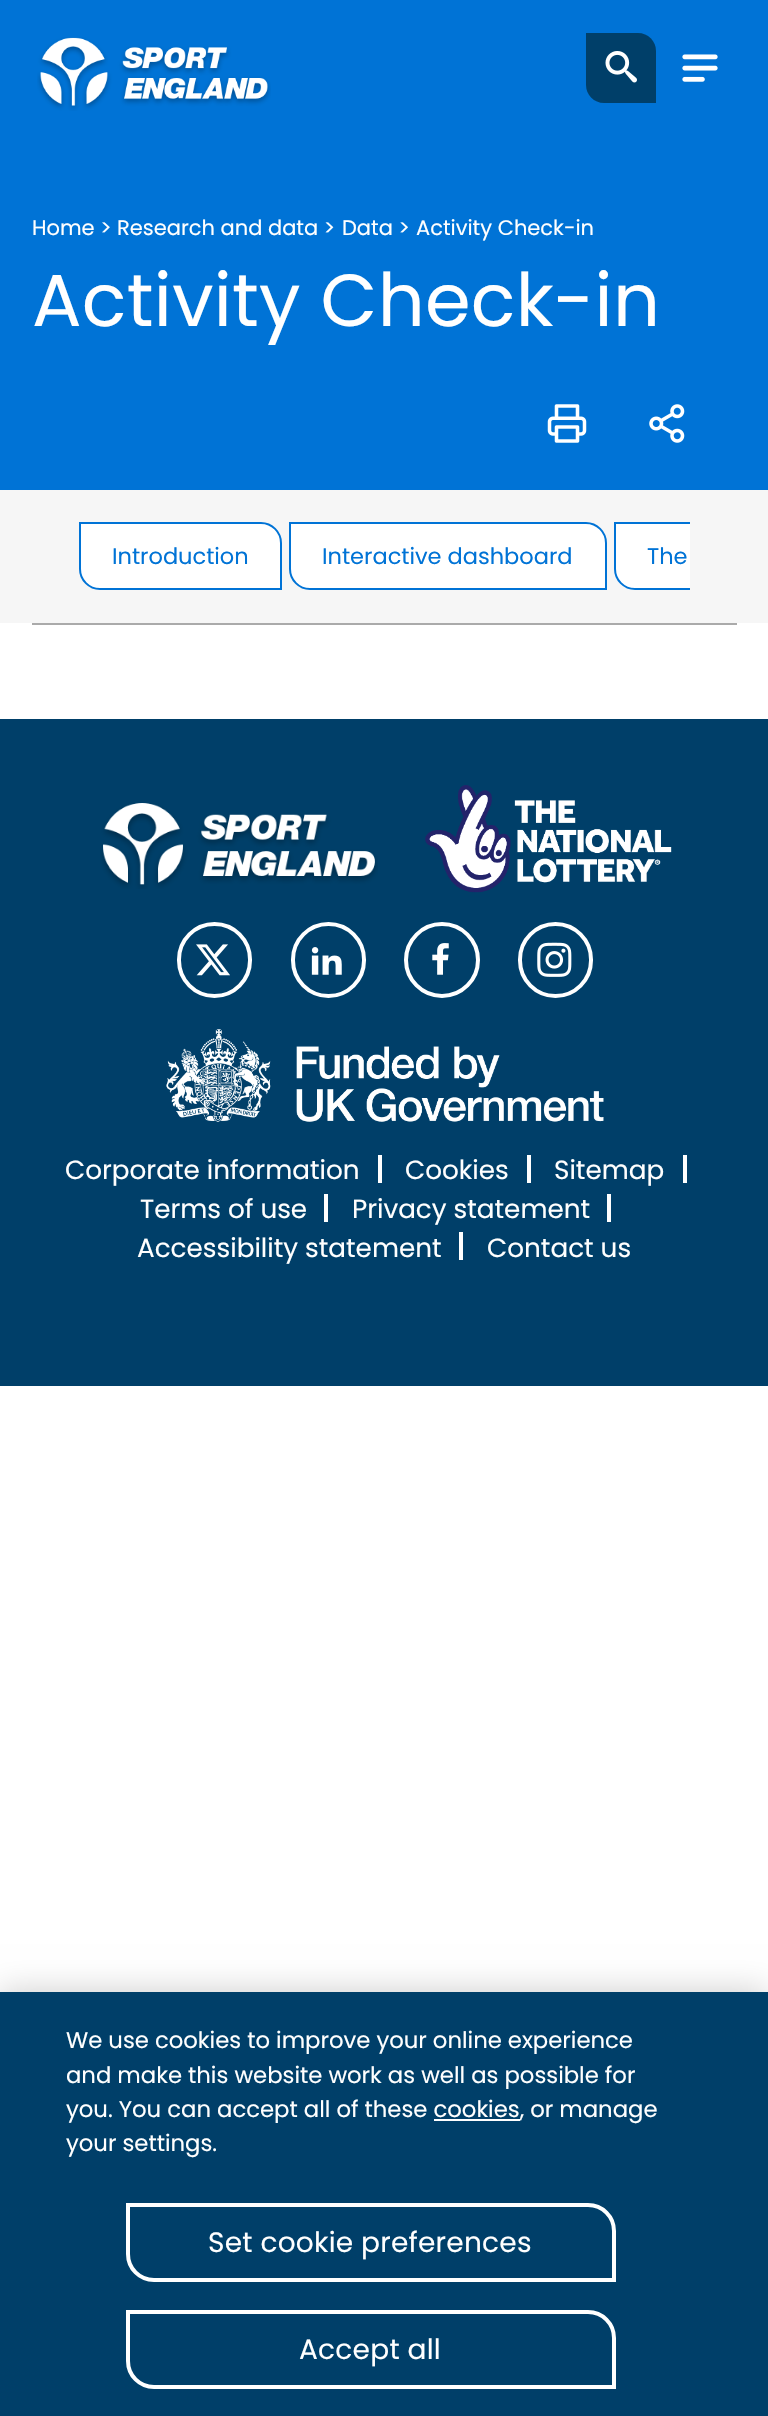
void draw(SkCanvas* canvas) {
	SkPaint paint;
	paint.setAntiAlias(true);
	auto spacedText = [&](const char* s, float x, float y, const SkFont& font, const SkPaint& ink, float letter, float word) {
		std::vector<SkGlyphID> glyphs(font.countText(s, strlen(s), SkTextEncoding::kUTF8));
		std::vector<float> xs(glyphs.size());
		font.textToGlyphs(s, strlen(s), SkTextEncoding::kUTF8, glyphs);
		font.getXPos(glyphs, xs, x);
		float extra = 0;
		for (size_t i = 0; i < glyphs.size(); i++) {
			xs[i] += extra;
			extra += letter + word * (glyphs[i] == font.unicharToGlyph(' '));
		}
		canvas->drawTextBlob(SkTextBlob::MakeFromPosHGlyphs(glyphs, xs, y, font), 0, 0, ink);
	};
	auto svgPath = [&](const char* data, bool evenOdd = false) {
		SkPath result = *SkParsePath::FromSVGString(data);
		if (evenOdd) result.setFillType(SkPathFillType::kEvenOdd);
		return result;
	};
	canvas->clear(0xffffffff);
	paint.setColor(0xff0073d6);
	canvas->drawRect(SkRect::MakeXYWH(0, 0, 768, 490), paint);
	canvas->drawImageRect(SkImages::DeferredFromEncodedData(SkData::MakeFromFileName("img1.png")), SkRect::MakeXYWH(37, 37, 234, 74), SkSamplingOptions());
	paint.setColor(0xff003f69);
	canvas->drawPath(svgPath("M586 33H638C648 33 656 41 656 51V103H604C594 103 586 95 586 85Z"), paint);
	canvas->drawImageRect(SkImages::DeferredFromEncodedData(SkData::MakeFromFileName("img2.png")), SkRect::MakeXYWH(605, 51, 32, 32), SkSamplingOptions());
	canvas->drawImageRect(SkImages::DeferredFromEncodedData(SkData::MakeFromFileName("img3.png")), SkRect::MakeXYWH(682, 54, 36, 28), SkSamplingOptions());
	SkFont f1(fontMgr->matchFamilyStyle("Poppins", SkFontStyle::Normal()), 21);
	f1.setSubpixel(true);
	paint.setColor(0xffffffff);
	canvas->drawString("Home >", 32, 235, f1, paint);
	canvas->drawString("Research and data >", 117, 235, f1, paint);
	canvas->drawString("Data >", 342, 235, f1, paint);
	canvas->drawString("Activity Check-in", 416, 235, f1, paint);
	SkFont f2(fontMgr->matchFamilyStyle("Poppins", SkFontStyle::Normal()), 73.5);
	f2.setSubpixel(true);
	spacedText("Activity Check-in", 32, 326, f2, paint, 0.3, 0);
	canvas->drawImageRect(SkImages::DeferredFromEncodedData(SkData::MakeFromFileName("img4.png")), SkRect::MakeXYWH(547, 404, 40, 39), SkSamplingOptions());
	canvas->drawImageRect(SkImages::DeferredFromEncodedData(SkData::MakeFromFileName("img5.png")), SkRect::MakeXYWH(649, 404, 36, 39), SkSamplingOptions());
	paint.setColor(0xfff6f6f6);
	canvas->drawRect(SkRect::MakeXYWH(0, 490, 768, 133), paint);
	paint.setColor(0xffffffff);
	canvas->drawPath(svgPath("M80 523H261C272 523 281 532 281 543V589H100C89 589 80 580 80 569Z"), paint);
	paint.setStroke(true);
	paint.setStrokeWidth(2);
	paint.setColor(0xff0073d6);
	canvas->drawPath(svgPath("M80 523H261C272 523 281 532 281 543V589H100C89 589 80 580 80 569Z"), paint);
	SkFont f3(fontMgr->matchFamilyStyle("Poppins", SkFontStyle::Normal()), 22.5);
	f3.setSubpixel(true);
	paint.setStroke(false);
	canvas->drawString("Introduction", 112, 564, f3, paint);
	paint.setColor(0xffffffff);
	canvas->drawPath(svgPath("M290 523H586C597 523 606 532 606 543V589H310C299 589 290 580 290 569Z"), paint);
	paint.setStroke(true);
	paint.setColor(0xff0073d6);
	canvas->drawPath(svgPath("M290 523H586C597 523 606 532 606 543V589H310C299 589 290 580 290 569Z"), paint);
	paint.setStroke(false);
	canvas->drawString("Interactive dashboard", 322, 564, f3, paint);
	paint.setColor(0xffffffff);
	canvas->drawPath(svgPath("M614 522H690V590H635C623.5 590 614 580.5 614 569Z"), paint);
	canvas->save();
	canvas->clipRect(SkRect::MakeXYWH(79, 522, 611, 68));
	paint.setStroke(true);
	paint.setColor(0xff0073d6);
	canvas->drawPath(svgPath("M615 523H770C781 523 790 532 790 543V589H635C624 589 615 580 615 569Z"), paint);
	canvas->restore();
	paint.setStroke(false);
	canvas->drawString("The", 647, 564, f3, paint);
	paint.setColor(0xffaaaaaa);
	canvas->drawRect(SkRect::MakeXYWH(32, 623, 705, 2), paint);
	paint.setColor(0xff003f69);
	canvas->drawRect(SkRect::MakeXYWH(0, 719, 768, 667), paint);
	canvas->drawImageRect(SkImages::DeferredFromEncodedData(SkData::MakeFromFileName("img6.png")), SkRect::MakeXYWH(100, 803, 278, 86), SkSamplingOptions());
	canvas->drawImageRect(SkImages::DeferredFromEncodedData(SkData::MakeFromFileName("img7.png")), SkRect::MakeXYWH(425, 785, 247, 108), SkSamplingOptions());
	paint.setStroke(true);
	paint.setStrokeWidth(4);
	paint.setColor(0xffffffff);
	canvas->drawRoundRect(SkRect::MakeXYWH(179, 924, 71, 72), 35.5, 35.5, paint);
	canvas->drawImageRect(SkImages::DeferredFromEncodedData(SkData::MakeFromFileName("img8.png")), SkRect::MakeXYWH(196, 944, 34, 32), SkSamplingOptions());
	canvas->drawRoundRect(SkRect::MakeXYWH(293, 924, 71, 72), 35.5, 35.5, paint);
	canvas->drawImageRect(SkImages::DeferredFromEncodedData(SkData::MakeFromFileName("img9.png")), SkRect::MakeXYWH(311, 947, 31, 28), SkSamplingOptions());
	canvas->drawCircle(442, 960, 36, paint);
	canvas->drawImageRect(SkImages::DeferredFromEncodedData(SkData::MakeFromFileName("img10.png")), SkRect::MakeXYWH(432, 943, 17, 32), SkSamplingOptions());
	canvas->drawRoundRect(SkRect::MakeXYWH(520, 924, 71, 72), 35.5, 35.5, paint);
	canvas->drawImageRect(SkImages::DeferredFromEncodedData(SkData::MakeFromFileName("img11.png")), SkRect::MakeXYWH(537, 942, 35, 35), SkSamplingOptions());
	canvas->drawImageRect(SkImages::DeferredFromEncodedData(SkData::MakeFromFileName("img12.png")), SkRect::MakeXYWH(166, 1029, 438, 93), SkSamplingOptions());
	SkFont f4(fontMgr->matchFamilyStyle("Poppins", SkFontStyle::Normal()), 26.25);
	f4.setSubpixel(true);
	paint.setStroke(false);
	canvas->drawString("Corporate information", 65, 1179, f4, paint);
	canvas->drawRect(SkRect::MakeXYWH(378, 1155, 4, 28), paint);
	canvas->drawString("Cookies", 405, 1179, f4, paint);
	canvas->drawRect(SkRect::MakeXYWH(527, 1155, 4, 28), paint);
	canvas->drawString("Sitemap", 554, 1179, f4, paint);
	canvas->drawRect(SkRect::MakeXYWH(683, 1155, 4, 28), paint);
	canvas->drawString("Terms of use", 140, 1218, f4, paint);
	canvas->drawRect(SkRect::MakeXYWH(324, 1194, 4, 28), paint);
	canvas->drawString("Privacy statement", 352, 1218, f4, paint);
	canvas->drawRect(SkRect::MakeXYWH(607, 1194, 4, 28), paint);
	canvas->drawString("Accessibility statement", 137, 1257, f4, paint);
	canvas->drawRect(SkRect::MakeXYWH(459, 1232, 4, 28), paint);
	canvas->drawString("Contact us", 487, 1257, f4, paint);
	paint.setColor(0x33000000);
	paint.setMaskFilter(SkMaskFilter::MakeBlur(kNormal_SkBlurStyle, 16));
	canvas->drawRect(SkRect::MakeXYWH(0, 1992, 768, 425), paint);
	paint.setMaskFilter(nullptr);
	paint.setColor(0xff003f69);
	canvas->drawRect(SkRect::MakeXYWH(0, 1992, 768, 424), paint);
	SkFont f5(fontMgr->matchFamilyStyle("Poppins", SkFontStyle::Normal()), 22.75);
	f5.setSubpixel(true);
	paint.setColor(0xffffffff);
	canvas->drawString("We use cookies to improve your online experience", 66, 2048, f5, paint);
	canvas->drawString("and make this website work as well as possible for", 66, 2083, f5, paint);
	canvas->drawString("you. You can accept all of these cookies, or manage", 66, 2117, f5, paint);
	canvas->drawRect(SkRect::MakeXYWH(434, 2119, 86, 2), paint);
	canvas->drawString("your settings.", 66, 2151, f5, paint);
	paint.setStroke(true);
	canvas->drawPath(svgPath("M128 2205H588C602.5 2205 614 2216.5 614 2231V2280H154C139.5 2280 128 2268.5 128 2254Z"), paint);
	SkFont f6(fontMgr->matchFamilyStyle("Poppins", SkFontStyle::Normal()), 28);
	f6.setSubpixel(true);
	paint.setStroke(false);
	spacedText("Set cookie preferences", 208, 2252, f6, paint, 0.25, 0);
	paint.setStroke(true);
	canvas->drawPath(svgPath("M128 2312H588C602.5 2312 614 2323.5 614 2338V2387H154C139.5 2387 128 2375.5 128 2361Z"), paint);
	paint.setStroke(false);
	spacedText("Accept all", 299, 2359, f6, paint, 0.25, 0);
}
